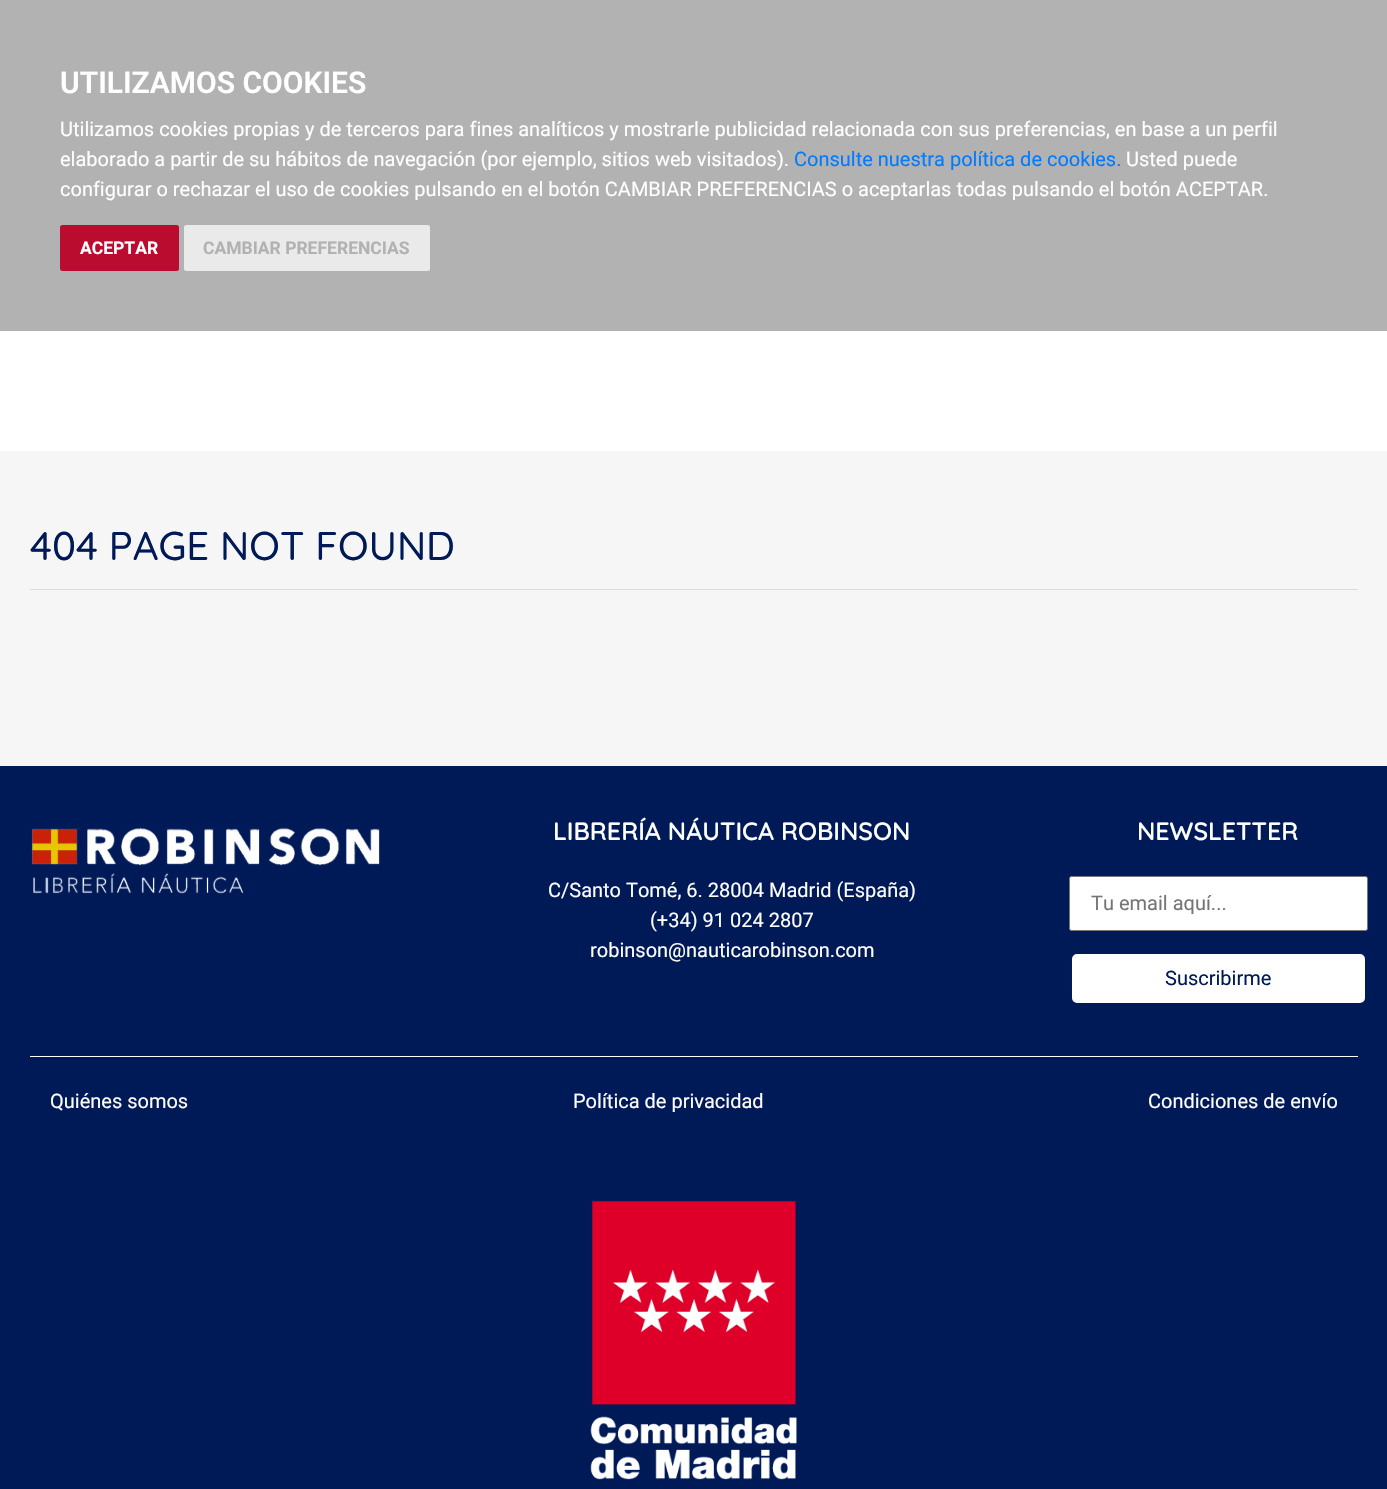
void draw(SkCanvas* canvas) {
	SkPaint paint;
	paint.setAntiAlias(true);
	canvas->clear(0xffffffff);
	paint.setColor(0xffb2b2b2);
	canvas->drawRect(SkRect::MakeXYWH(0, 0, 1387, 331), paint);
	SkFont f1(fontMgr->matchFamilyStyle("Roboto", SkFontStyle(600, SkFontStyle::kNormal_Width, SkFontStyle::kUpright_Slant)), 30);
	f1.setSubpixel(true);
	paint.setColor(0xffffffff);
	canvas->drawString("UTILIZAMOS COOKIES", 60, 93, f1, paint);
	SkFont f2(fontMgr->matchFamilyStyle("Roboto", SkFontStyle::Normal()), 20);
	f2.setSubpixel(true);
	canvas->drawString("Utilizamos cookies propias y de terceros para fines analíticos y mostrarle publicidad relacionada con sus preferencias, en base a un perfil", 60, 136, f2, paint);
	canvas->drawString("elaborado a partir de su hábitos de navegación (por ejemplo, sitios web visitados).", 60, 166, f2, paint);
	paint.setColor(0xff007bff);
	canvas->drawString("Consulte nuestra política de cookies.", 794, 166, f2, paint);
	paint.setColor(0xffffffff);
	canvas->drawString("Usted puede", 1126, 166, f2, paint);
	canvas->drawString("configurar o rechazar el uso de cookies pulsando en el botón CAMBIAR PREFERENCIAS o aceptarlas todas pulsando el botón ACEPTAR.", 60, 196, f2, paint);
	paint.setColor(0xffba0c2f);
	canvas->drawRoundRect(SkRect::MakeXYWH(60, 225, 119, 46), 2.5, 2.5, paint);
	SkFont f3(fontMgr->matchFamilyStyle("Roboto", SkFontStyle::Bold()), 17.5);
	f3.setSubpixel(true);
	paint.setColor(0xffffffff);
	canvas->drawString("ACEPTAR", 80, 254, f3, paint);
	paint.setColor(0xffeaeaea);
	canvas->drawRoundRect(SkRect::MakeXYWH(184, 225, 246, 46), 2.5, 2.5, paint);
	paint.setColor(0xffb2b2b2);
	canvas->drawString("CAMBIAR PREFERENCIAS", 203, 254, f3, paint);
	paint.setColor(0xfff6f6f6);
	canvas->drawRect(SkRect::MakeXYWH(0, 451, 1387, 315), paint);
	SkFont f4(fontMgr->matchFamilyStyle("Quicksand", SkFontStyle(500, SkFontStyle::kNormal_Width, SkFontStyle::kUpright_Slant)), 40);
	f4.setSubpixel(true);
	paint.setColor(0xff001a58);
	canvas->drawString("404 PAGE NOT FOUND", 30, 560, f4, paint);
	paint.setColor(0xffdddddd);
	canvas->drawRect(SkRect::MakeXYWH(30, 589, 1328, 1), paint);
	paint.setColor(0xff001a58);
	canvas->drawRect(SkRect::MakeXYWH(0, 766, 1387, 723), paint);
	canvas->drawImageRect(SkImages::DeferredFromEncodedData(SkData::MakeFromFileName("img1.png")), SkRect::MakeXYWH(31, 827, 349, 67), SkSamplingOptions());
	SkFont f5(fontMgr->matchFamilyStyle("Quicksand", SkFontStyle(600, SkFontStyle::kNormal_Width, SkFontStyle::kUpright_Slant)), 25);
	f5.setSubpixel(true);
	paint.setColor(0xffffffff);
	canvas->drawString("LIBRERÍA NÁUTICA ROBINSON", 553, 840, f5, paint);
	canvas->drawString("C/Santo Tomé, 6. 28004 Madrid (España)", 548, 897, f2, paint);
	canvas->drawString("(+34) 91 024 2807", 650, 927, f2, paint);
	canvas->drawString("robinson@nauticarobinson.com", 590, 957, f2, paint);
	canvas->drawString("NEWSLETTER", 1137, 840, f5, paint);
	canvas->drawRoundRect(SkRect::MakeXYWH(1069.5, 876.5, 298, 54), 2, 2, paint);
	paint.setStroke(true);
	paint.setStrokeWidth(1);
	paint.setColor(0xff767676);
	canvas->drawRoundRect(SkRect::MakeXYWH(1069.5, 876.5, 298, 54), 2, 2, paint);
	paint.setStroke(false);
	paint.setColor(0xff757575);
	canvas->drawString("Tu email aquí...", 1091, 910, f2, paint);
	paint.setColor(0xffffffff);
	canvas->drawRoundRect(SkRect::MakeXYWH(1070.5, 952.5, 296, 52), 6.5, 6.5, paint);
	paint.setStroke(true);
	paint.setStrokeWidth(3);
	paint.setColor(0xff001a58);
	canvas->drawRoundRect(SkRect::MakeXYWH(1070.5, 952.5, 296, 52), 6.5, 6.5, paint);
	paint.setStroke(false);
	canvas->drawString("Suscribirme", 1165, 985, f2, paint);
	paint.setColor(0xffffffff);
	canvas->drawRect(SkRect::MakeXYWH(30, 1056, 1328, 1), paint);
	canvas->drawString("Quiénes somos", 50, 1108, f2, paint);
	canvas->drawString("Política de privacidad", 573, 1108, f2, paint);
	canvas->drawString("Condiciones de envío", 1148, 1108, f2, paint);
	canvas->drawImageRect(SkImages::DeferredFromEncodedData(SkData::MakeFromFileName("img2.png")), SkRect::MakeXYWH(590, 1200, 207, 280), SkSamplingOptions());
}
